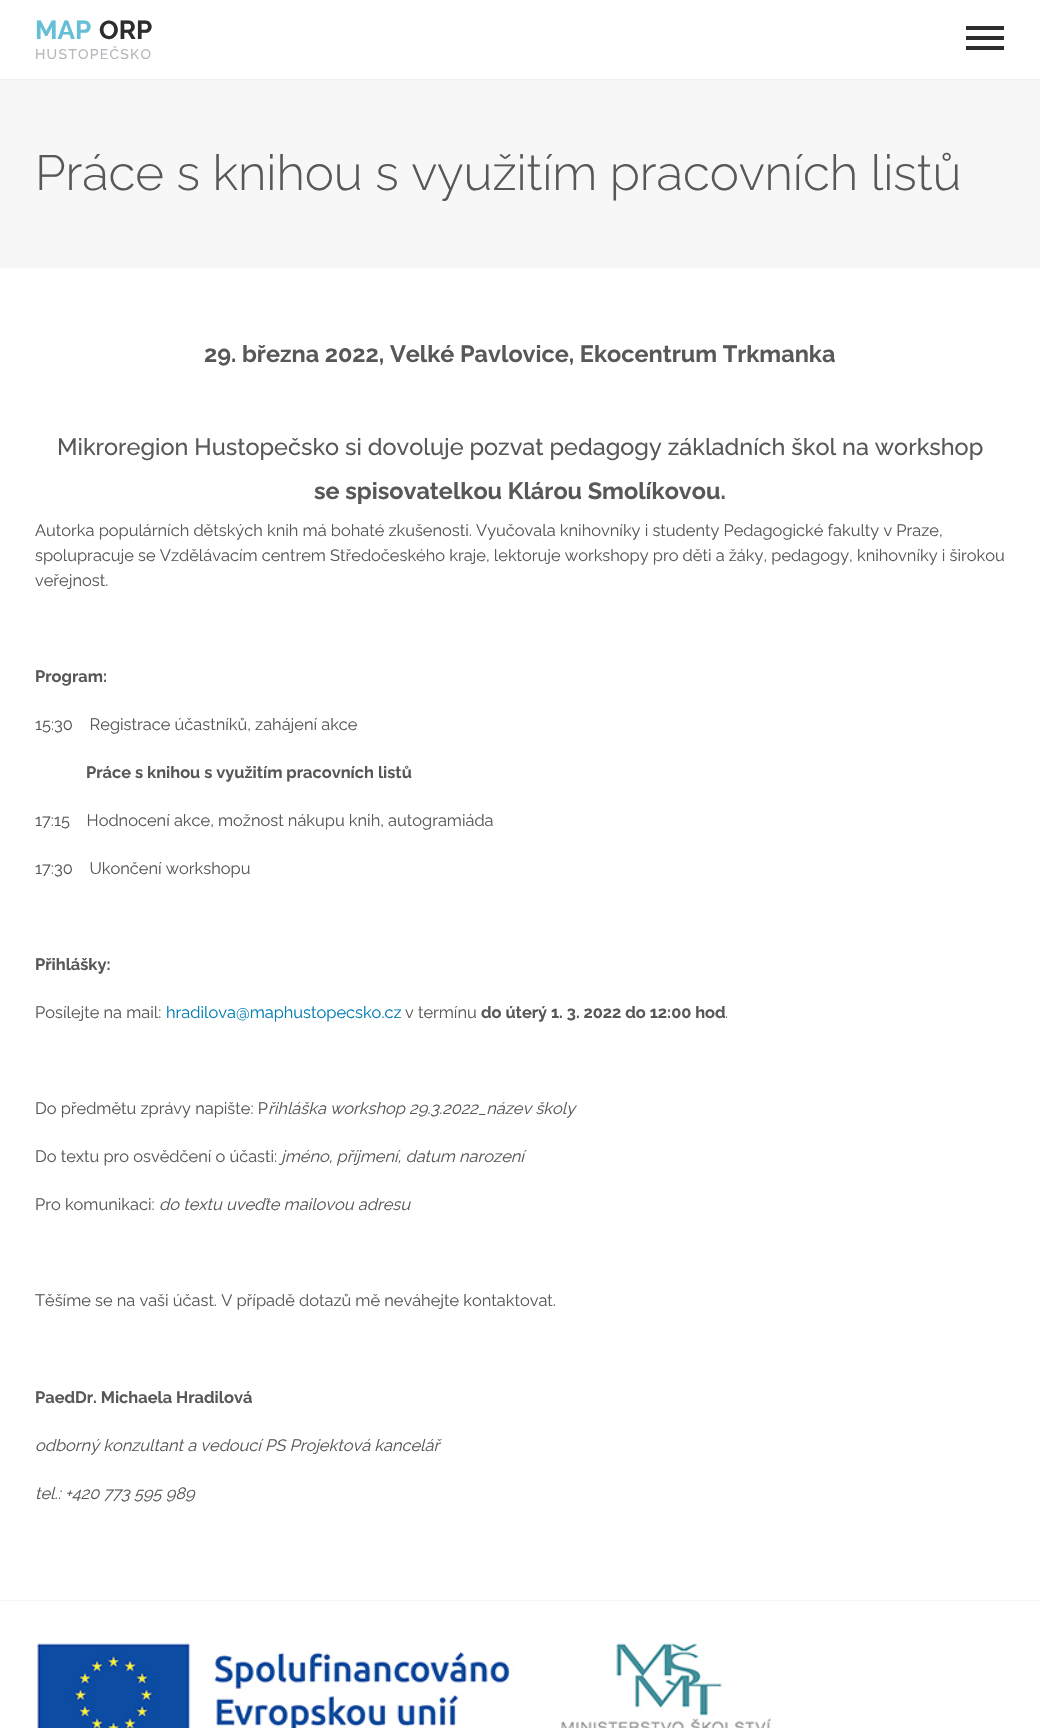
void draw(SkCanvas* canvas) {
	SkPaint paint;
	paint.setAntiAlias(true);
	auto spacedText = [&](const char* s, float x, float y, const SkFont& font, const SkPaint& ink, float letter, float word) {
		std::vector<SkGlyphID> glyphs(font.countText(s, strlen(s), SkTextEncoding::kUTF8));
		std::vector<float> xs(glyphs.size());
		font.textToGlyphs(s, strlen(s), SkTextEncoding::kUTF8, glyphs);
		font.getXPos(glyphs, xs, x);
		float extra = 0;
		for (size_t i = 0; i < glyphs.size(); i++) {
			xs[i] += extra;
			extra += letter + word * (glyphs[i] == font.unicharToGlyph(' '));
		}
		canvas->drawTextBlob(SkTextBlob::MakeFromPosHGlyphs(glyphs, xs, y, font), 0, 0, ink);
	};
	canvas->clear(0xffffffff);
	paint.setColor(0xffeeeeee);
	canvas->drawRect(SkRect::MakeXYWH(0, 79, 1040, 1), paint);
	SkFont f1(fontMgr->matchFamilyStyle("Raleway", SkFontStyle::Bold()), 26);
	f1.setSubpixel(true);
	paint.setColor(0xff67bfd7);
	canvas->drawString("MAP", 35, 39, f1, paint);
	paint.setColor(0xff2c2d2f);
	canvas->drawString("ORP", 99, 39, f1, paint);
	SkFont f2(fontMgr->matchFamilyStyle("Raleway", SkFontStyle(500, SkFontStyle::kNormal_Width, SkFontStyle::kUpright_Slant)), 14);
	f2.setSubpixel(true);
	paint.setColor(0xffb5b7bb);
	spacedText("HUSTOPEČSKO", 35, 59, f2, paint, 1.25, 0);
	paint.setColor(0xff2c2d2f);
	canvas->drawRect(SkRect::MakeXYWH(966, 36, 38, 4), paint);
	canvas->drawRect(SkRect::MakeXYWH(966, 26, 38, 4), paint);
	canvas->drawRect(SkRect::MakeXYWH(966, 46, 38, 4), paint);
	paint.setColor(0xfff7f7f7);
	canvas->drawRect(SkRect::MakeXYWH(0, 80, 1040, 188), paint);
	SkFont f3(fontMgr->matchFamilyStyle("Raleway", SkFontStyle(300, SkFontStyle::kNormal_Width, SkFontStyle::kUpright_Slant)), 49.25);
	f3.setSubpixel(true);
	paint.setColor(0xff595757);
	spacedText("Práce s knihou s využitím pracovních listů", 35, 190, f3, paint, -0.1, 0);
	SkFont f4(fontMgr->matchFamilyStyle("Raleway", SkFontStyle::Bold()), 23.45);
	f4.setSubpixel(true);
	canvas->drawString("29. března 2022, Velké Pavlovice, Ekocentrum Trkmanka", 204, 362, f4, paint);
	SkFont f5(fontMgr->matchFamilyStyle("Raleway", SkFontStyle(500, SkFontStyle::kNormal_Width, SkFontStyle::kUpright_Slant)), 23.45);
	f5.setSubpixel(true);
	canvas->drawString("Mikroregion Hustopečsko si dovoluje pozvat pedagogy základních škol na workshop", 57, 455, f5, paint);
	canvas->drawString("se spisovatelkou Klárou Smolíkovou.", 314, 499, f4, paint);
	SkFont f6(fontMgr->matchFamilyStyle("Raleway", SkFontStyle::Normal()), 16.4);
	f6.setSubpixel(true);
	canvas->drawString("Autorka populárních dětských knih má bohaté zkušenosti. Vyučovala knihovníky i studenty Pedagogické fakulty v Praze,", 35, 536, f6, paint);
	canvas->drawString("spolupracuje se Vzdělávacím centrem Středočeského kraje, lektoruje workshopy pro děti a žáky, pedagogy, knihovníky i širokou", 35, 561, f6, paint);
	canvas->drawString("veřejnost.", 35, 586, f6, paint);
	SkFont f7(fontMgr->matchFamilyStyle("Raleway", SkFontStyle::Bold()), 16.4);
	f7.setSubpixel(true);
	canvas->drawString("Program:", 35, 682, f7, paint);
	canvas->drawString("15:30    Registrace účastníků, zahájení akce", 35, 730, f6, paint);
	canvas->drawString("Práce s knihou s využitím pracovních listů", 86, 778, f7, paint);
	canvas->drawString("17:15    Hodnocení akce, možnost nákupu knih, autogramiáda", 35, 826, f6, paint);
	canvas->drawString("17:30    Ukončení workshopu", 35, 874, f6, paint);
	canvas->drawString("Přihlášky:", 35, 970, f7, paint);
	canvas->drawString("Posílejte na mail:", 35, 1018, f6, paint);
	paint.setColor(0xff007db3);
	canvas->drawString("hradilova@maphustopecsko.cz", 166, 1018, f6, paint);
	paint.setColor(0xff595757);
	canvas->drawString("v termínu", 405, 1018, f6, paint);
	canvas->drawString("do úterý 1. 3. 2022 do 12:00 hod", 481, 1018, f7, paint);
	canvas->drawString(".", 725, 1018, f6, paint);
	canvas->drawString("Do předmětu zprávy napište: P", 35, 1114, f6, paint);
	SkFont f8(fontMgr->matchFamilyStyle("Raleway", SkFontStyle::Italic()), 16.4);
	f8.setSubpixel(true);
	canvas->drawString("řihláška workshop 29.3.2022_název školy", 268, 1114, f8, paint);
	canvas->drawString("Do textu pro osvědčení o účasti:", 35, 1162, f6, paint);
	canvas->drawString("jméno, příjmení, datum narození", 281, 1162, f8, paint);
	canvas->drawString("Pro komunikaci:", 35, 1210, f6, paint);
	canvas->drawString("do textu uveďte mailovou adresu", 159, 1210, f8, paint);
	canvas->drawString("Těšíme se na vaši účast. V případě dotazů mě neváhejte kontaktovat.", 35, 1306, f6, paint);
	canvas->drawString("PaedDr. Michaela Hradilová", 35, 1403, f7, paint);
	canvas->drawString("odborný konzultant a vedoucí PS Projektová kancelář", 35, 1451, f8, paint);
	canvas->drawString("tel.: +420 773 595 989", 35, 1499, f8, paint);
	paint.setColor(0xfff5f5f5);
	canvas->drawRect(SkRect::MakeXYWH(0, 1600, 1040, 1), paint);
	canvas->drawImageRect(SkImages::DeferredFromEncodedData(SkData::MakeFromFileName("img1.png")), SkRect::MakeXYWH(37, 1643, 735, 85), SkSamplingOptions());
}
